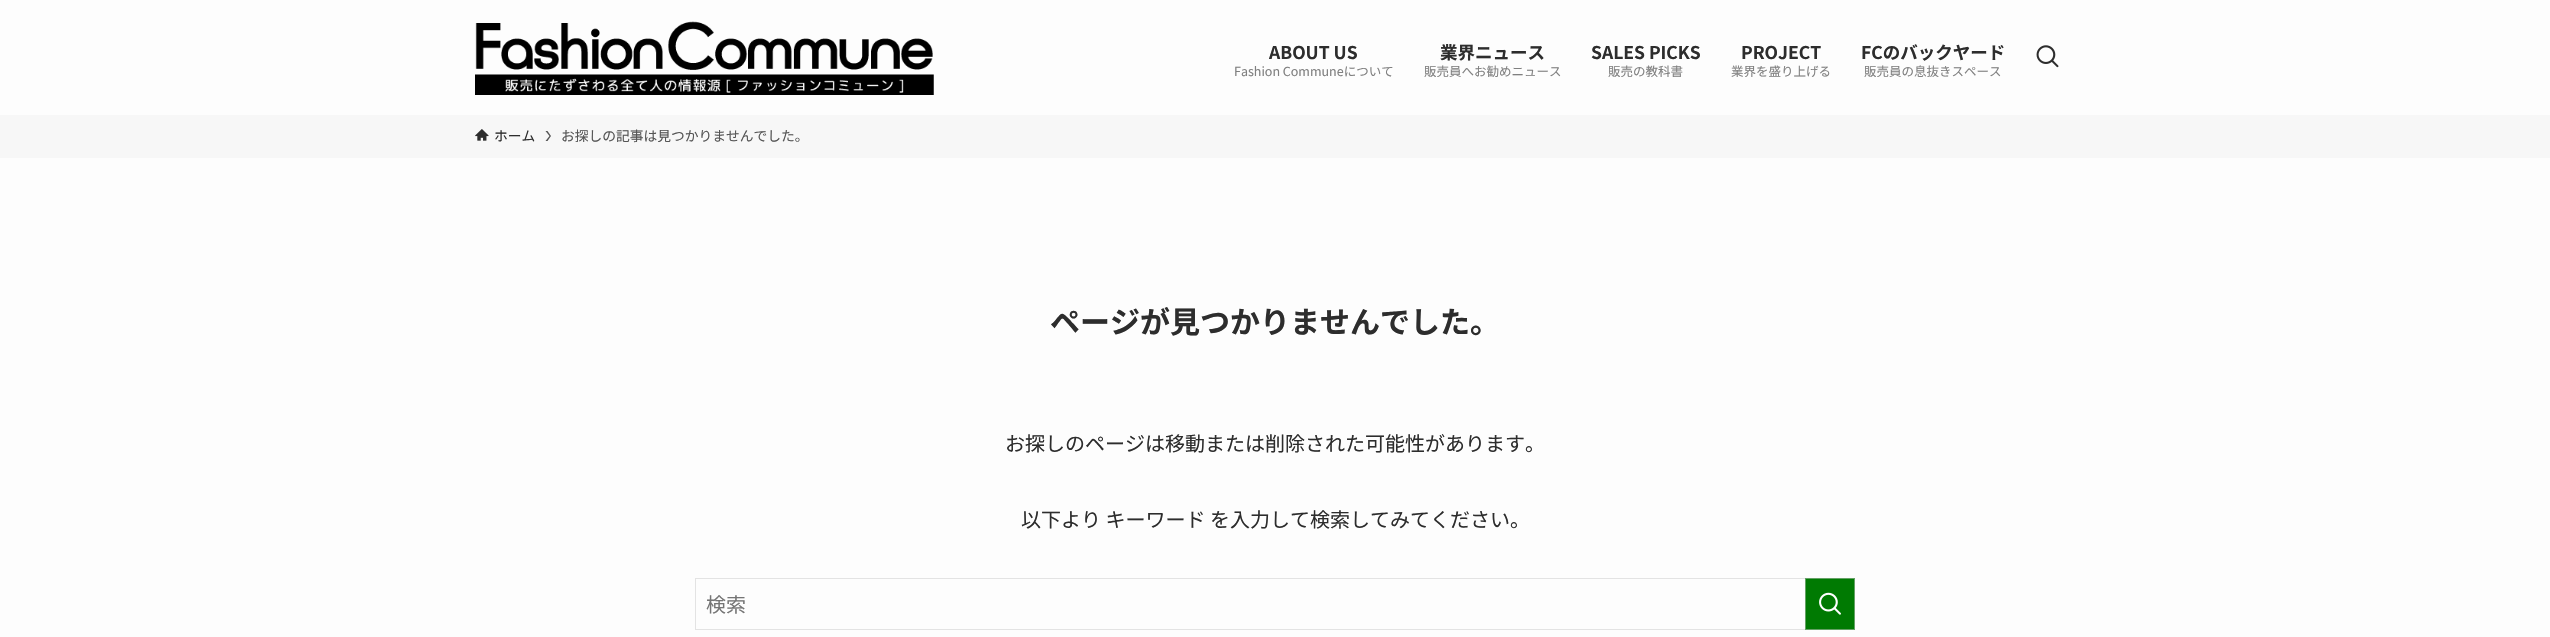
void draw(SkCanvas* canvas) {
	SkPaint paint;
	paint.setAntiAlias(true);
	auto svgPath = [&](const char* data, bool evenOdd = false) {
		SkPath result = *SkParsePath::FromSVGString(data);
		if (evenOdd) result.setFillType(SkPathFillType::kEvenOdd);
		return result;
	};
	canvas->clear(0xfffdfdfd);
	canvas->drawImageRect(SkImages::DeferredFromEncodedData(SkData::MakeFromFileName("img1.png")), SkRect::MakeXYWH(475, 21, 459, 74), SkSamplingOptions());
	SkFont f1(fontMgr->matchFamilyStyle("Noto Sans JP", SkFontStyle::Bold()), 17.5);
	f1.setSubpixel(true);
	paint.setColor(0xff2d2d2d);
	canvas->drawString("ABOUT US", 1269, 59, f1, paint);
	SkFont f2(fontMgr->matchFamilyStyle("Noto Sans JP", SkFontStyle::Normal()), 12.5);
	f2.setSubpixel(true);
	paint.setColor(0xff808080);
	canvas->drawString("Fashion Communeについて", 1234, 76, f2, paint);
	paint.setColor(0xff2d2d2d);
	canvas->drawString("業界ニュース", 1440, 59, f1, paint);
	paint.setColor(0xff808080);
	canvas->drawString("販売員へお勧めニュース", 1424, 76, f2, paint);
	paint.setColor(0xff2d2d2d);
	canvas->drawString("SALES PICKS", 1591, 59, f1, paint);
	paint.setColor(0xff808080);
	canvas->drawString("販売の教科書", 1608, 76, f2, paint);
	paint.setColor(0xff2d2d2d);
	canvas->drawString("PROJECT", 1741, 59, f1, paint);
	paint.setColor(0xff808080);
	canvas->drawString("業界を盛り上げる", 1731, 76, f2, paint);
	paint.setColor(0xff2d2d2d);
	canvas->drawString("FCのバックヤード", 1861, 59, f1, paint);
	paint.setColor(0xff808080);
	canvas->drawString("販売員の息抜きスペース", 1864, 76, f2, paint);
	canvas->drawImageRect(SkImages::DeferredFromEncodedData(SkData::MakeFromFileName("img2.png")), SkRect::MakeXYWH(2036, 45, 23, 23), SkSamplingOptions());
	paint.setColor(0xfff7f7f7);
	canvas->drawRect(SkRect::MakeXYWH(0, 115, 2550, 43), paint);
	canvas->drawImageRect(SkImages::DeferredFromEncodedData(SkData::MakeFromFileName("img3.png")), SkRect::MakeXYWH(475, 129, 14, 12), SkSamplingOptions());
	SkFont f3(fontMgr->matchFamilyStyle("Noto Sans JP", SkFontStyle::Normal()), 13.75);
	f3.setSubpixel(true);
	paint.setColor(0xff2d2d2d);
	canvas->drawString("ホーム", 494, 141, f3, paint);
	paint.setColor(0xff555555);
	canvas->drawPath(svgPath("M547.5 131H545.5L549.5 136L545.5 141H547.5L551 136Z"), paint);
	canvas->drawString("お探しの記事は見つかりませんでした。", 561, 141, f3, paint);
	SkFont f4(fontMgr->matchFamilyStyle("Noto Sans JP", SkFontStyle::Bold()), 30);
	f4.setSubpixel(true);
	paint.setColor(0xff2d2d2d);
	canvas->drawString("ページが見つかりませんでした。", 1050, 333, f4, paint);
	SkFont f5(fontMgr->matchFamilyStyle("Noto Sans JP", SkFontStyle::Normal()), 20);
	f5.setSubpixel(true);
	canvas->drawString("お探しのページは移動または削除された可能性があります。", 1005, 451, f5, paint);
	canvas->drawString("以下より キーワード を入力して検索してみてください。", 1021, 527, f5, paint);
	paint.setStroke(true);
	paint.setStrokeWidth(1);
	paint.setColor(0xffe3e3e3);
	canvas->drawRect(SkRect::MakeXYWH(695.5, 578.5, 1159, 51), paint);
	paint.setStroke(false);
	paint.setColor(0xff757575);
	canvas->drawString("検索", 706, 612, f5, paint);
	paint.setColor(0xff007a02);
	canvas->drawRect(SkRect::MakeXYWH(1805.5, 578.5, 49, 51), paint);
	paint.setStroke(true);
	paint.setColor(0xff64a165);
	canvas->drawRect(SkRect::MakeXYWH(1805.5, 578.5, 49, 51), paint);
	canvas->drawImageRect(SkImages::DeferredFromEncodedData(SkData::MakeFromFileName("img4.png")), SkRect::MakeXYWH(1819, 592, 22, 23), SkSamplingOptions());
}
